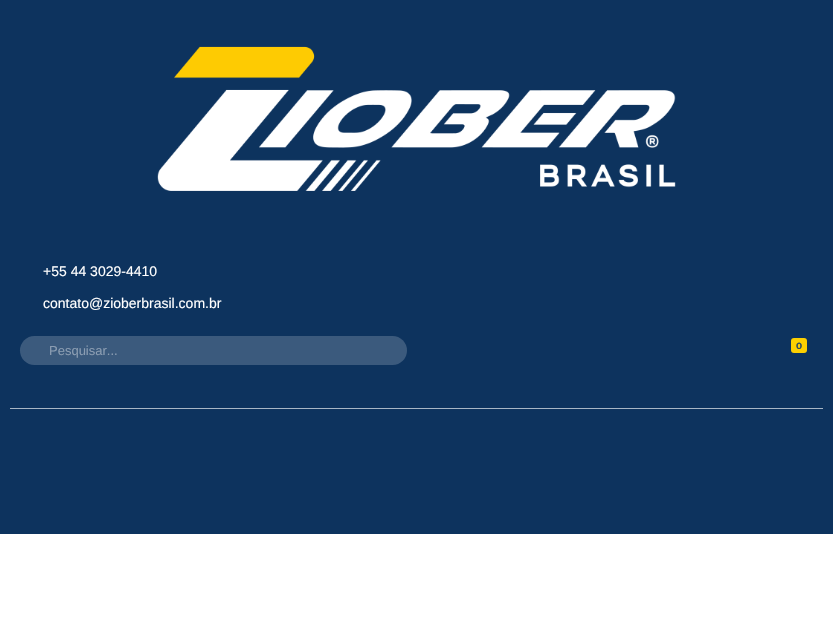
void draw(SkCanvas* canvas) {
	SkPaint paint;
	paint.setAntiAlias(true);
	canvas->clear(0xffffffff);
	paint.setColor(0xff0d335e);
	canvas->drawRect(SkRect::MakeXYWH(0, 0, 833, 534), paint);
	canvas->drawImageRect(SkImages::DeferredFromEncodedData(SkData::MakeFromFileName("img1.png")), SkRect::MakeXYWH(157, 46, 519, 145), SkSamplingOptions());
	SkFont f1(fontMgr->matchFamilyStyle("Liberation Sans", SkFontStyle::Normal()), 14);
	f1.setSubpixel(true);
	paint.setColor(0xffffffff);
	canvas->drawString("+55 44 3029-4410", 43, 276, f1, paint);
	canvas->drawString("contato@zioberbrasil.com.br", 43, 308, f1, paint);
	paint.setColor(0xff3b5a7d);
	canvas->drawRoundRect(SkRect::MakeXYWH(20, 336, 387, 29), 14.5, 14.5, paint);
	SkFont f2(fontMgr->matchFamilyStyle("Liberation Sans", SkFontStyle::Normal()), 13);
	f2.setSubpixel(true);
	paint.setColor(0xff8b9db2);
	canvas->drawString("Pesquisar...", 49, 355, f2, paint);
	paint.setColor(0xfffdd000);
	canvas->drawRoundRect(SkRect::MakeXYWH(791, 338, 16, 15), 3, 3, paint);
	SkFont f3(fontMgr->matchFamilyStyle("Montserrat", SkFontStyle::Bold()), 9);
	f3.setSubpixel(true);
	paint.setColor(0xff2f4d60);
	canvas->drawString("0", 796, 349, f3, paint);
	paint.setColor(0xffa8b6c5);
	canvas->drawRect(SkRect::MakeXYWH(10, 408, 813, 1), paint);
}
